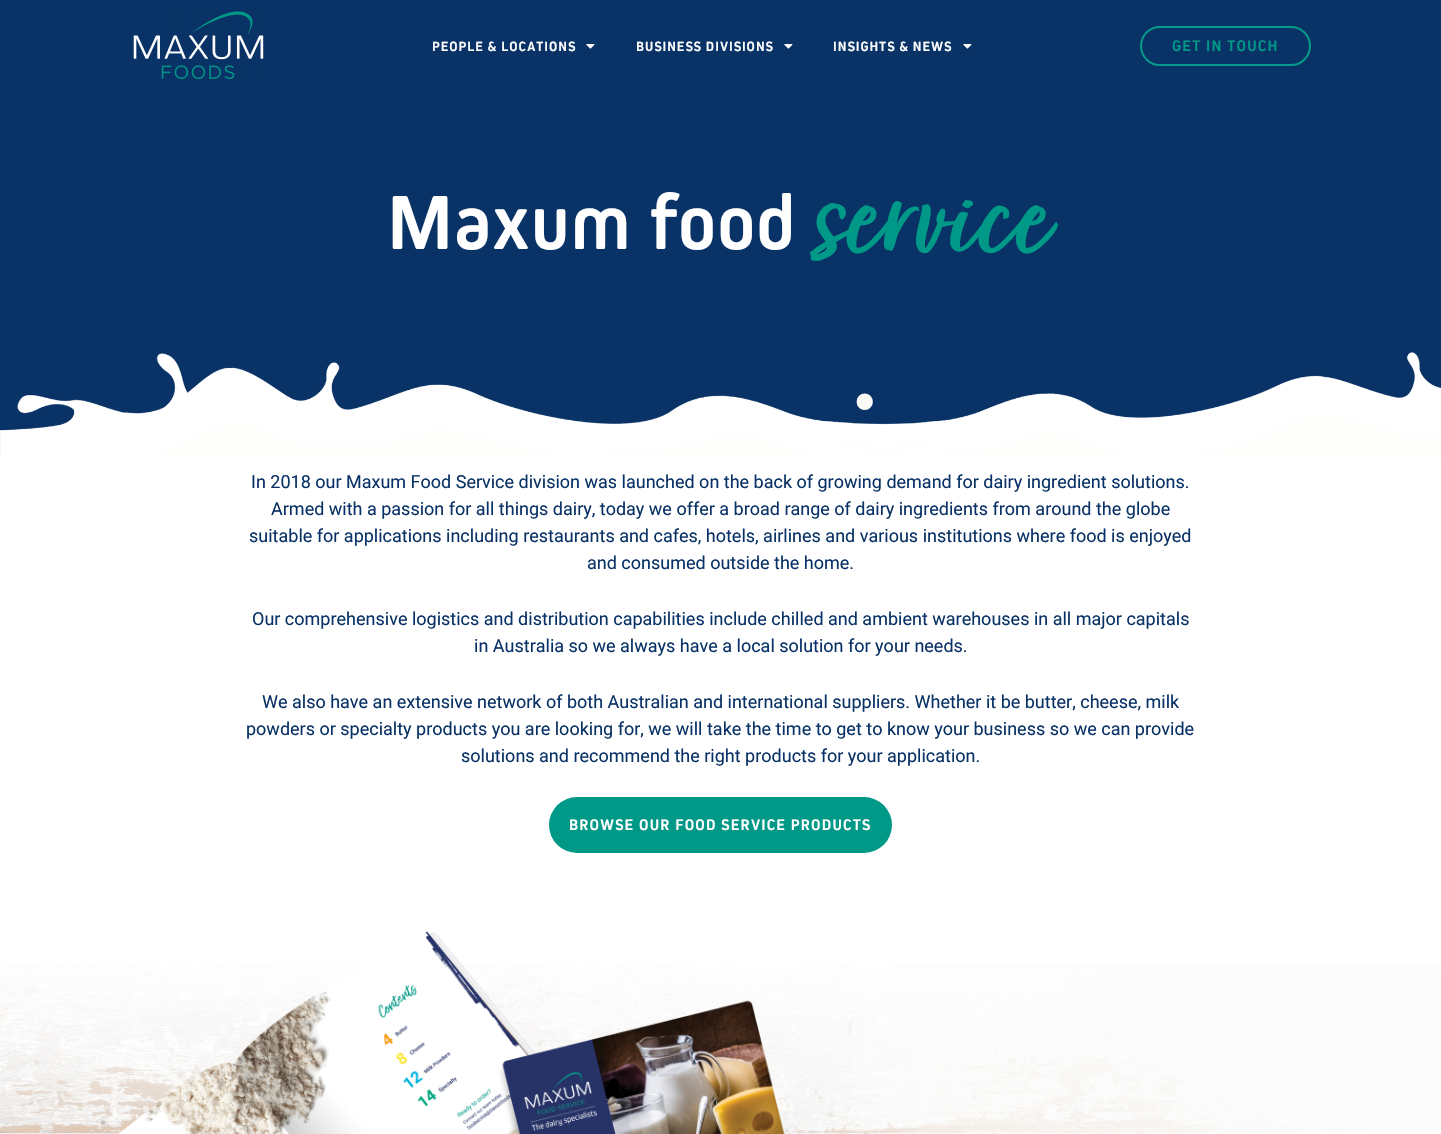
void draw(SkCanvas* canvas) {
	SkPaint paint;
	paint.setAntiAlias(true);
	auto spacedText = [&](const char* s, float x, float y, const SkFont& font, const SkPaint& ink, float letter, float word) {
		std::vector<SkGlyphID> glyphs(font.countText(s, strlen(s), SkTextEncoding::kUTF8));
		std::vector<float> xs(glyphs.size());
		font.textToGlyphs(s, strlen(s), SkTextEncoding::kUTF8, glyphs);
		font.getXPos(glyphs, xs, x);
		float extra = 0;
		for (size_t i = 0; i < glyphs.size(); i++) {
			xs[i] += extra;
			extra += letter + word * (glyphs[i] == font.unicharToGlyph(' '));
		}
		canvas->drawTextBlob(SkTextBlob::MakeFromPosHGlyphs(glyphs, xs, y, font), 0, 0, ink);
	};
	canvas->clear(0xffffffff);
	paint.setColor(0xff093266);
	canvas->drawRect(SkRect::MakeXYWH(0, 0, 1441, 458), paint);
	canvas->drawImageRect(SkImages::DeferredFromEncodedData(SkData::MakeFromFileName("img1.png")), SkRect::MakeXYWH(133, 11, 131, 68), SkSamplingOptions());
	SkFont f1(fontMgr->matchFamilyStyle("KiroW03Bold", SkFontStyle::Bold()), 14);
	f1.setSubpixel(true);
	paint.setColor(0xffffffff);
	spacedText("PEOPLE & LOCATIONS", 432, 51, f1, paint, 1, 0);
	canvas->drawImageRect(SkImages::DeferredFromEncodedData(SkData::MakeFromFileName("img2.png")), SkRect::MakeXYWH(586, 44, 9, 5), SkSamplingOptions());
	spacedText("BUSINESS DIVISIONS", 636, 51, f1, paint, 1, 0);
	canvas->drawImageRect(SkImages::DeferredFromEncodedData(SkData::MakeFromFileName("img2.png")), SkRect::MakeXYWH(784, 44, 9, 5), SkSamplingOptions());
	spacedText("INSIGHTS & NEWS", 833, 51, f1, paint, 1, 0);
	canvas->drawImageRect(SkImages::DeferredFromEncodedData(SkData::MakeFromFileName("img2.png")), SkRect::MakeXYWH(963, 44, 9, 5), SkSamplingOptions());
	paint.setStroke(true);
	paint.setStrokeWidth(2);
	paint.setColor(0xff039a89);
	canvas->drawRoundRect(SkRect::MakeXYWH(1141, 27, 169, 38), 19, 19, paint);
	SkFont f2(fontMgr->matchFamilyStyle("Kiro", SkFontStyle::Bold()), 16);
	f2.setSubpixel(true);
	paint.setStroke(false);
	paint.setColor(0xff009887);
	spacedText("GET IN TOUCH", 1172, 51, f2, paint, 1.2, 0);
	SkFont f3(fontMgr->matchFamilyStyle("Kiro", SkFontStyle::Bold()), 80);
	f3.setSubpixel(true);
	paint.setColor(0xffffffff);
	spacedText("Maxum food", 387, 249, f3, paint, 1, 0);
	SkFont f4(fontMgr->matchFamilyStyle("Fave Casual", SkFontStyle::Bold()), 140);
	f4.setSubpixel(true);
	paint.setColor(0xff009887);
	spacedText("service", 815, 263, f4, paint, 1, 0);
	canvas->drawImageRect(SkImages::DeferredFromEncodedData(SkData::MakeFromFileName("img3.png")), SkRect::MakeXYWH(0, 352, 1441, 106), SkSamplingOptions());
	SkFont f5(fontMgr->matchFamilyStyle("Roboto", SkFontStyle::Normal()), 18);
	f5.setSubpixel(true);
	paint.setColor(0xff093266);
	canvas->drawString("In 2018 our Maxum Food Service division was launched on the back of growing demand for dairy ingredient solutions.", 251, 488, f5, paint);
	canvas->drawString("Armed with a passion for all things dairy, today we offer a broad range of dairy ingredients from around the globe", 271, 515, f5, paint);
	canvas->drawString("suitable for applications including restaurants and cafes, hotels, airlines and various institutions where food is enjoyed", 249, 542, f5, paint);
	canvas->drawString("and consumed outside the home.", 587, 569, f5, paint);
	canvas->drawString("Our comprehensive logistics and distribution capabilities include chilled and ambient warehouses in all major capitals", 252, 625, f5, paint);
	canvas->drawString("in Australia so we always have a local solution for your needs.", 474, 652, f5, paint);
	canvas->drawString("We also have an extensive network of both Australian and international suppliers. Whether it be butter, cheese, milk", 262, 708, f5, paint);
	canvas->drawString("powders or specialty products you are looking for, we will take the time to get to know your business so we can provide", 246, 735, f5, paint);
	canvas->drawString("solutions and recommend the right products for your application.", 461, 762, f5, paint);
	paint.setColor(0xff009887);
	canvas->drawRoundRect(SkRect::MakeXYWH(549, 797, 343, 56), 28, 28, paint);
	paint.setColor(0xffffffff);
	spacedText("BROWSE OUR FOOD SERVICE PRODUCTS", 569, 830, f2, paint, 1.2, 0);
	canvas->drawImageRect(SkImages::DeferredFromEncodedData(SkData::MakeFromFileName("img4.png")), SkRect::MakeXYWH(0, 965, 1441, 169), SkSamplingOptions());
	canvas->drawImageRect(SkImages::DeferredFromEncodedData(SkData::MakeFromFileName("img5.png")), SkRect::MakeXYWH(118, 931, 667, 203), SkSamplingOptions());
}
